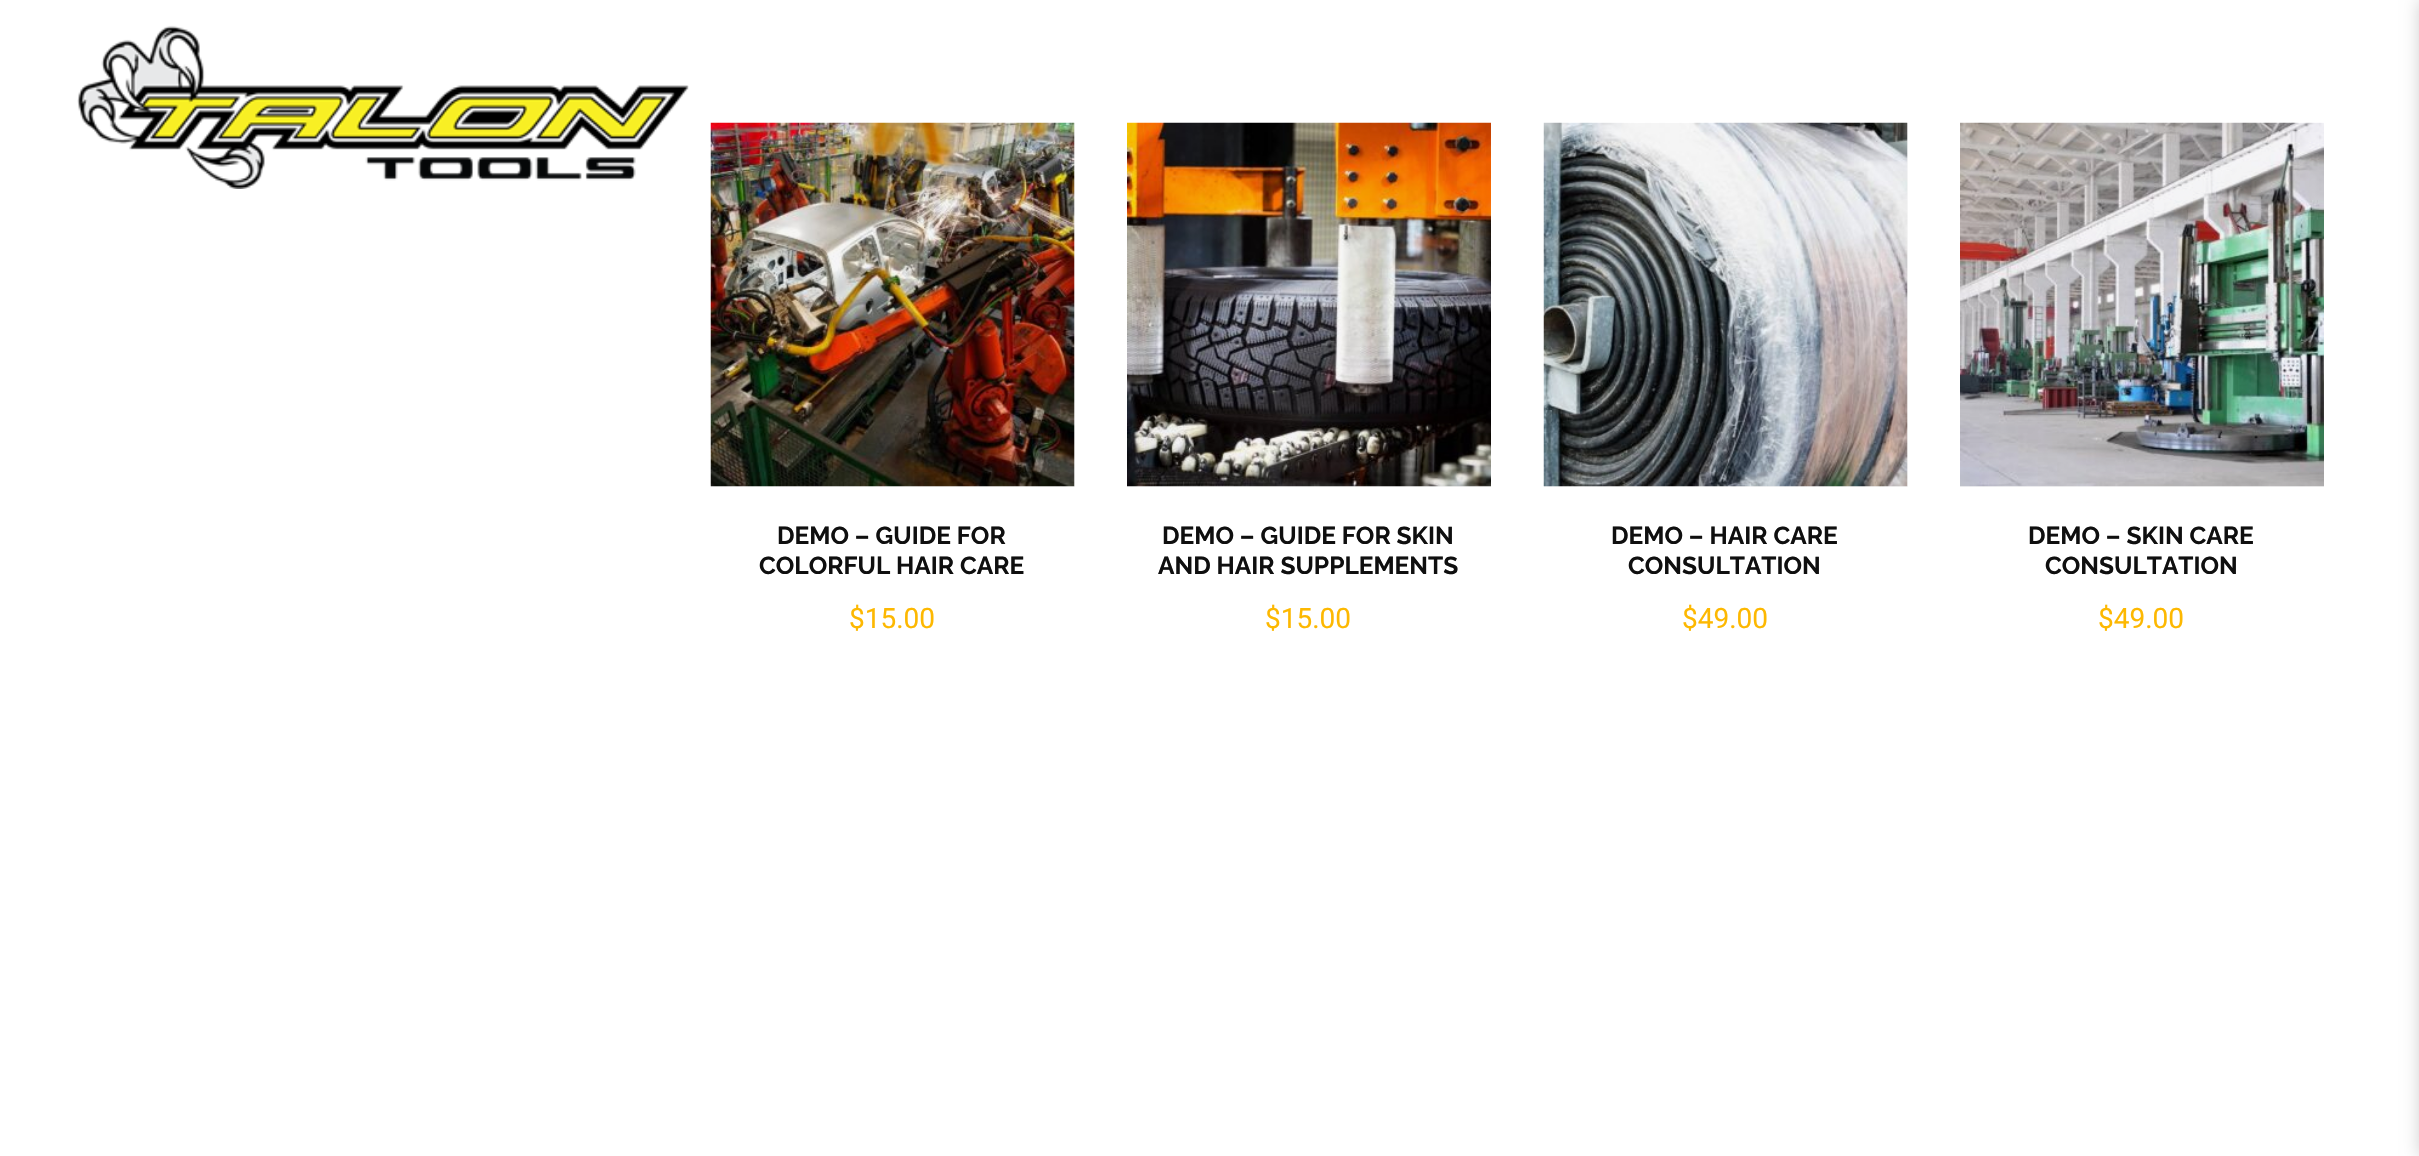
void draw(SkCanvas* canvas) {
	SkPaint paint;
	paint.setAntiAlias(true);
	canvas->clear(0xffffffff);
	paint.setColor(0xfff7f7f7);
	canvas->drawRect(SkRect::MakeXYWH(1960, 486, 364, 1), paint);
	canvas->drawRect(SkRect::MakeXYWH(1544, 123, 364, 364), paint);
	canvas->drawRect(SkRect::MakeXYWH(1127, 486, 364, 1), paint);
	canvas->drawRect(SkRect::MakeXYWH(711, 123, 364, 364), paint);
	canvas->drawImageRect(SkImages::DeferredFromEncodedData(SkData::MakeFromFileName("img1.png")), SkRect::MakeXYWH(77, 25, 612, 164), SkSamplingOptions());
	canvas->drawImageRect(SkImages::DeferredFromEncodedData(SkData::MakeFromFileName("img2.png")), SkRect::MakeXYWH(710, 122, 365, 365), SkSamplingOptions());
	SkFont f1(fontMgr->matchFamilyStyle("Raleway", SkFontStyle::Bold()), 24.5);
	f1.setSubpixel(true);
	paint.setColor(0xff0f0f0f);
	canvas->drawString("DEMO – GUIDE FOR", 777, 544, f1, paint);
	canvas->drawString("COLORFUL HAIR CARE", 759, 574, f1, paint);
	SkFont f2(fontMgr->matchFamilyStyle("Roboto", SkFontStyle::Normal()), 28);
	f2.setSubpixel(true);
	paint.setColor(0xfffdb801);
	canvas->drawString("$15.00", 849, 628, f2, paint);
	canvas->drawImageRect(SkImages::DeferredFromEncodedData(SkData::MakeFromFileName("img3.png")), SkRect::MakeXYWH(1127, 122, 364, 365), SkSamplingOptions());
	paint.setColor(0xff0f0f0f);
	canvas->drawString("DEMO – GUIDE FOR SKIN", 1162, 544, f1, paint);
	canvas->drawString("AND HAIR SUPPLEMENTS", 1158, 574, f1, paint);
	paint.setColor(0xfffdb801);
	canvas->drawString("$15.00", 1265, 628, f2, paint);
	canvas->drawImageRect(SkImages::DeferredFromEncodedData(SkData::MakeFromFileName("img4.png")), SkRect::MakeXYWH(1543, 122, 365, 365), SkSamplingOptions());
	paint.setColor(0xff0f0f0f);
	canvas->drawString("DEMO – HAIR CARE", 1611, 544, f1, paint);
	canvas->drawString("CONSULTATION", 1628, 574, f1, paint);
	paint.setColor(0xfffdb801);
	canvas->drawString("$49.00", 1682, 628, f2, paint);
	canvas->drawImageRect(SkImages::DeferredFromEncodedData(SkData::MakeFromFileName("img5.png")), SkRect::MakeXYWH(1960, 122, 364, 365), SkSamplingOptions());
	paint.setColor(0xff0f0f0f);
	canvas->drawString("DEMO – SKIN CARE", 2028, 544, f1, paint);
	canvas->drawString("CONSULTATION", 2045, 574, f1, paint);
	paint.setColor(0xfffdb801);
	canvas->drawString("$49.00", 2098, 628, f2, paint);
	paint.setColor(0x33000000);
	paint.setMaskFilter(SkMaskFilter::MakeBlur(kNormal_SkBlurStyle, 9));
	canvas->drawRect(SkRect::MakeXYWH(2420, 0, 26, 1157), paint);
	paint.setMaskFilter(nullptr);
}
